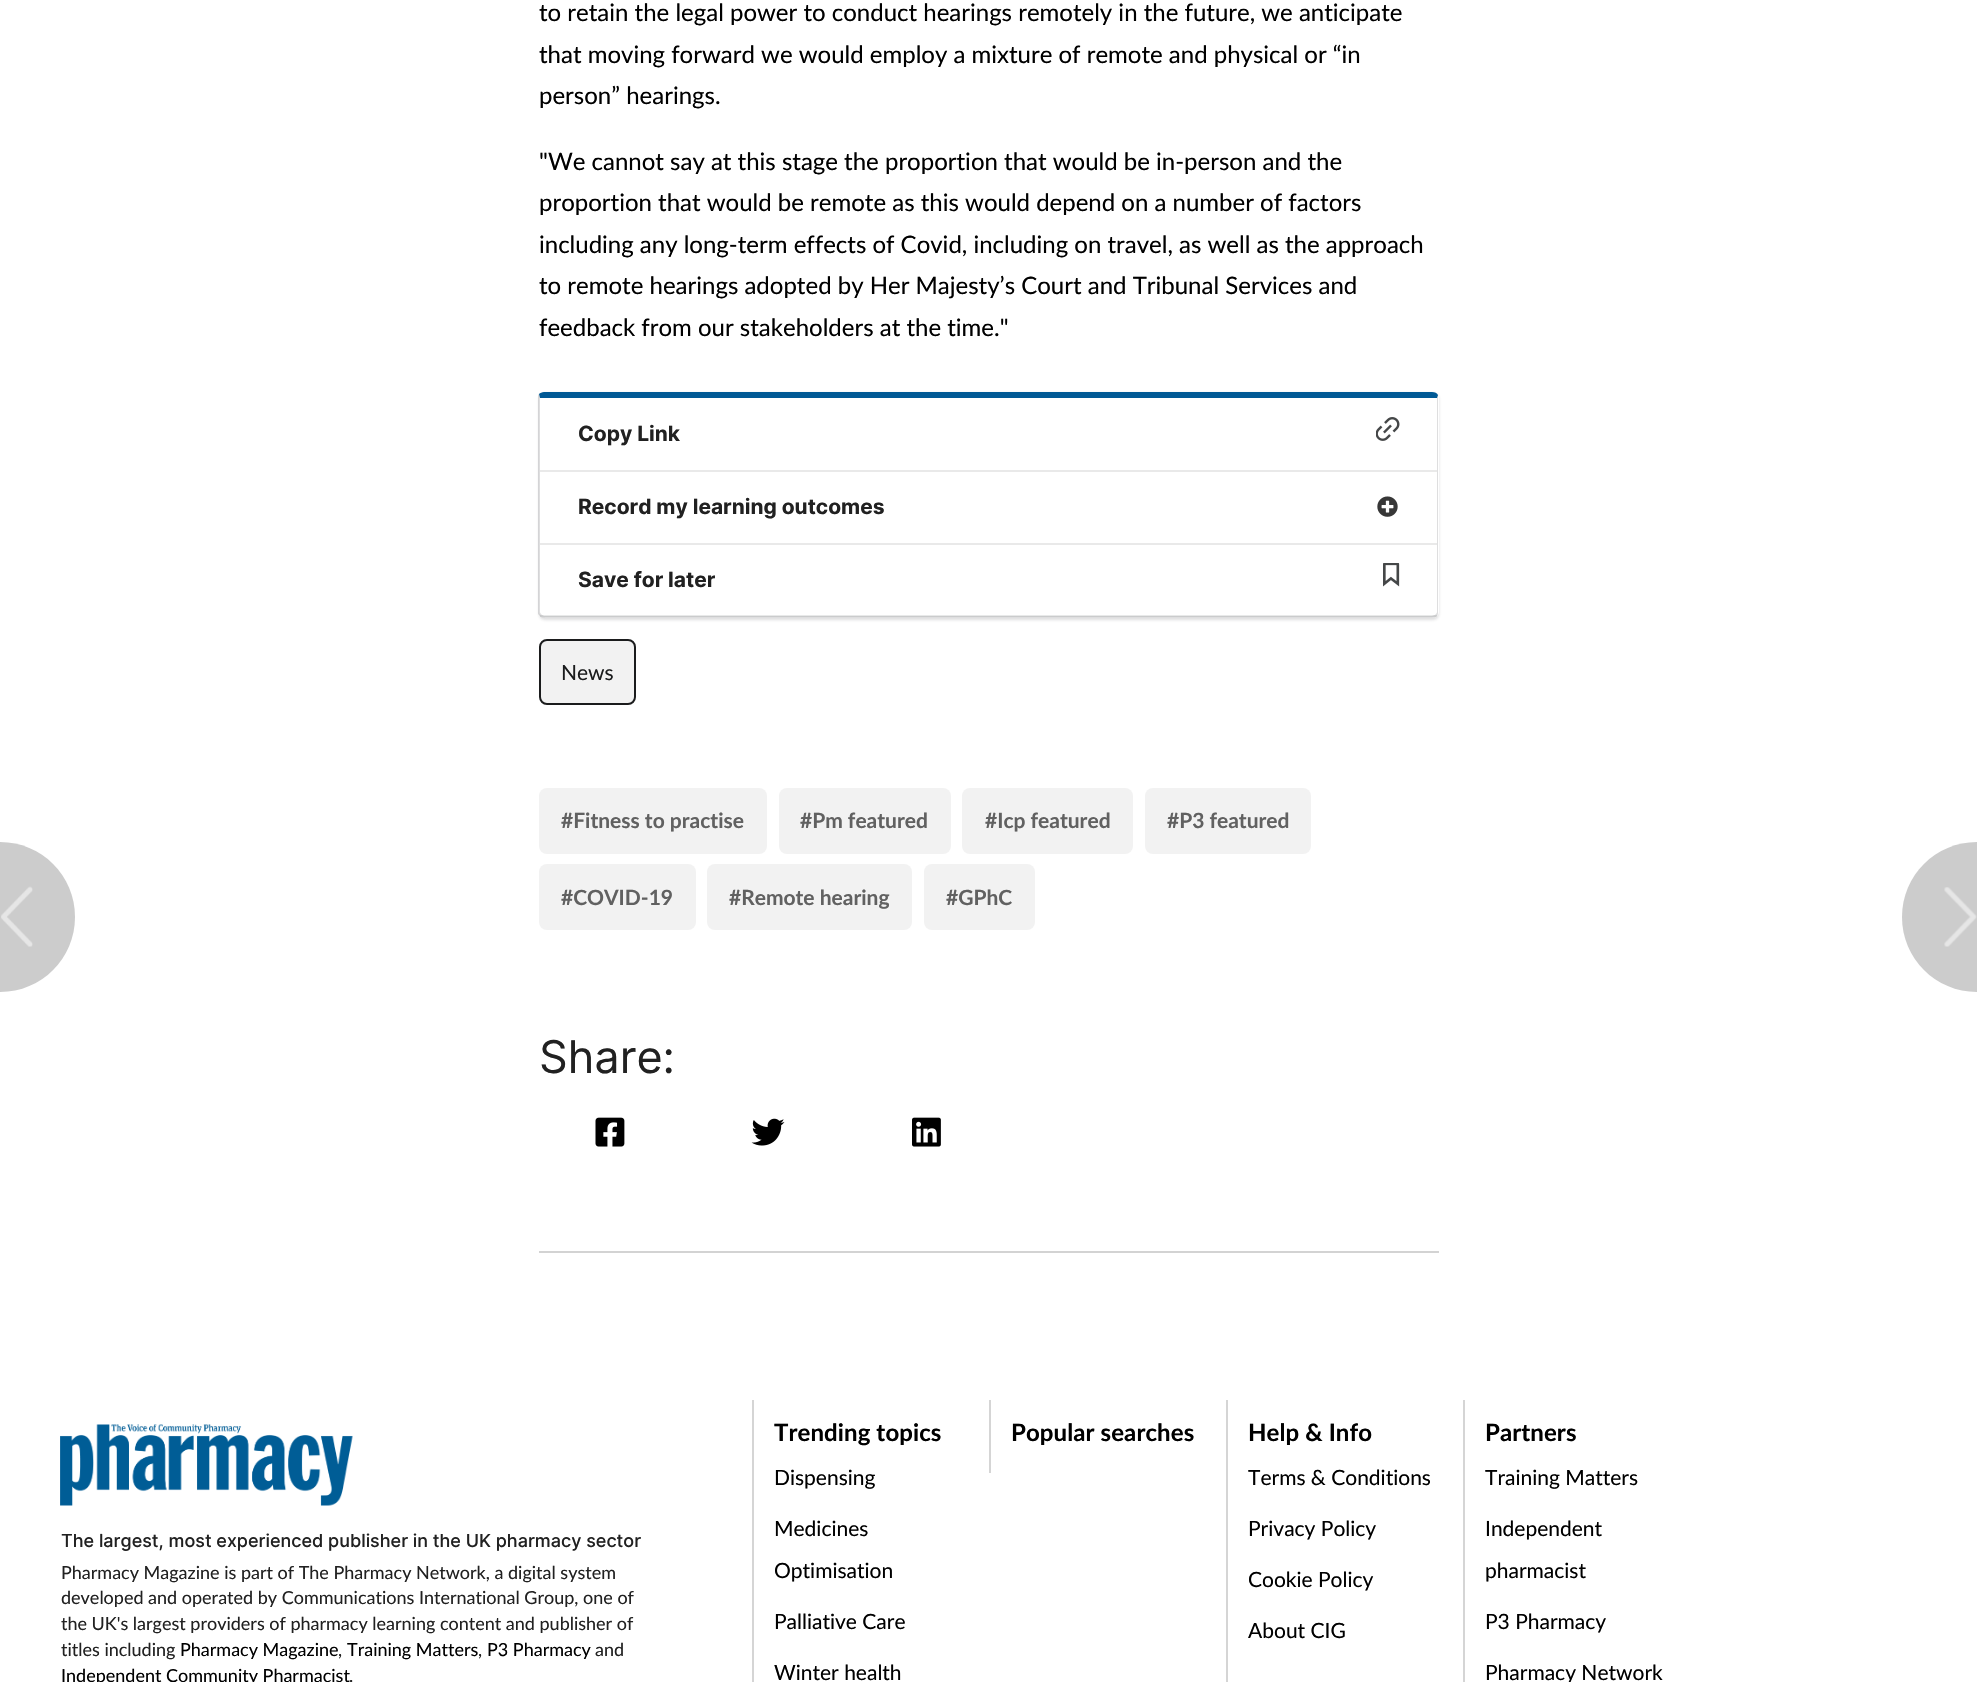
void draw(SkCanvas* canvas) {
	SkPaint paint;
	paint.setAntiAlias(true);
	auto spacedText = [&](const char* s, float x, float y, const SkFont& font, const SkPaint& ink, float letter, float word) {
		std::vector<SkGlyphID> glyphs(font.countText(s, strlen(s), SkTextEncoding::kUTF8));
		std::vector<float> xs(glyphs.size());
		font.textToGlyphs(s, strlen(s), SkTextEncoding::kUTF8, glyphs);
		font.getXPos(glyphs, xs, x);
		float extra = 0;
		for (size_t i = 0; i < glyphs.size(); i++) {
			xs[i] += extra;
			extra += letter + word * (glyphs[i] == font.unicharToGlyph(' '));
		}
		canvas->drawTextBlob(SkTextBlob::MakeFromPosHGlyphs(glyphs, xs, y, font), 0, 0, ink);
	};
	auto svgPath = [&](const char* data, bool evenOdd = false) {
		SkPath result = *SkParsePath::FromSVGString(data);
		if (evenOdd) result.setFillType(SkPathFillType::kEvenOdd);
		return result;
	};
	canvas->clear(0xffffffff);
	SkFont f1(fontMgr->matchFamilyStyle("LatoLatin", SkFontStyle::Normal()), 24);
	f1.setSubpixel(true);
	paint.setColor(0xff000000);
	canvas->drawString("to retain the legal power to conduct hearings remotely in the future, we anticipate", 539, 21, f1, paint);
	canvas->drawString("that moving forward we would employ a mixture of remote and physical or “in", 539, 63, f1, paint);
	canvas->drawString("person” hearings.", 539, 104, f1, paint);
	canvas->drawString("\"We cannot say at this stage the proportion that would be in-person and the", 539, 170, f1, paint);
	canvas->drawString("proportion that would be remote as this would depend on a number of factors", 539, 211, f1, paint);
	canvas->drawString("including any long-term effects of Covid, including on travel, as well as the approach", 539, 253, f1, paint);
	canvas->drawString("to remote hearings adopted by Her Majesty’s Court and Tribunal Services and", 539, 294, f1, paint);
	canvas->drawString("feedback from our stakeholders at the time.\"", 539, 336, f1, paint);
	paint.setColor(0x26222426);
	paint.setMaskFilter(SkMaskFilter::MakeBlur(kNormal_SkBlurStyle, 1.5));
	canvas->drawRoundRect(SkRect::MakeXYWH(539, 393, 900, 227), 6, 6, paint);
	paint.setMaskFilter(nullptr);
	paint.setColor(0xffffffff);
	canvas->drawRoundRect(SkRect::MakeXYWH(539, 392, 900, 226), 6, 6, paint);
	paint.setColor(0xff005995);
	canvas->drawPath(svgPath("M544 392C542 392 540 393 539 394L540 398H1437L1438 395C1437 393 1435 392 1432 392Z"), paint);
	paint.setColor(0x26222426);
	canvas->drawPath(svgPath("M1438 395V398V612C1438 613 1438 615 1437 616L1435 615C1436 614 1437 613 1437 612V398Z"), paint);
	canvas->drawPath(svgPath("M544 618H1432C1434 618 1436 617 1437 616L1435 615L1432 616H544L542 615L540 616C541 617 543 618 544 618Z"), paint);
	canvas->drawPath(svgPath("M538 395L539 394L540 398V612C540 613 541 614 542 615L540 616L538 614Z"), paint);
	paint.setColor(0xffe9e9e9);
	canvas->drawRect(SkRect::MakeXYWH(540, 470, 897, 2), paint);
	SkFont f2(fontMgr->matchFamilyStyle("Inter", SkFontStyle::Bold()), 21);
	f2.setSubpixel(true);
	paint.setColor(0xff212121);
	canvas->drawString("Copy Link", 578, 441, f2, paint);
	canvas->drawImageRect(SkImages::DeferredFromEncodedData(SkData::MakeFromFileName("img1.png")), SkRect::MakeXYWH(1376, 417, 24, 24), SkSamplingOptions());
	paint.setColor(0xffe9e9e9);
	canvas->drawRect(SkRect::MakeXYWH(540, 543, 897, 2), paint);
	paint.setColor(0xff212121);
	canvas->drawString("Record my learning outcomes", 578, 514, f2, paint);
	canvas->drawImageRect(SkImages::DeferredFromEncodedData(SkData::MakeFromFileName("img2.png")), SkRect::MakeXYWH(1377, 496, 21, 21), SkSamplingOptions());
	paint.setColor(0x1a222426);
	canvas->drawRect(SkRect::MakeXYWH(540, 615, 897, 2), paint);
	paint.setColor(0xff212121);
	canvas->drawString("Save for later", 578, 587, f2, paint);
	canvas->drawImageRect(SkImages::DeferredFromEncodedData(SkData::MakeFromFileName("img3.png")), SkRect::MakeXYWH(1383, 563, 17, 24), SkSamplingOptions());
	paint.setColor(0xfff2f2f2);
	canvas->drawRoundRect(SkRect::MakeXYWH(540, 640, 95, 64), 7, 7, paint);
	paint.setStroke(true);
	paint.setStrokeWidth(2);
	paint.setColor(0xff1b1c1d);
	canvas->drawRoundRect(SkRect::MakeXYWH(540, 640, 95, 64), 7, 7, paint);
	SkFont f3(fontMgr->matchFamilyStyle("LatoLatin", SkFontStyle::Normal()), 21);
	f3.setSubpixel(true);
	paint.setStroke(false);
	canvas->drawString("News", 561, 680, f3, paint);
	paint.setColor(0xfff2f2f2);
	canvas->drawRoundRect(SkRect::MakeXYWH(539, 788, 228, 66), 8, 8, paint);
	SkFont f4(fontMgr->matchFamilyStyle("LatoLatin", SkFontStyle::Bold()), 21);
	f4.setSubpixel(true);
	paint.setColor(0xff616161);
	canvas->drawString("#Fitness to practise", 561, 828, f4, paint);
	paint.setColor(0xfff2f2f2);
	canvas->drawRoundRect(SkRect::MakeXYWH(779, 788, 172, 66), 8, 8, paint);
	paint.setColor(0xff616161);
	canvas->drawString("#Pm featured", 800, 828, f4, paint);
	paint.setColor(0xfff2f2f2);
	canvas->drawRoundRect(SkRect::MakeXYWH(962, 788, 171, 66), 8, 8, paint);
	paint.setColor(0xff616161);
	canvas->drawString("#Icp featured", 985, 828, f4, paint);
	paint.setColor(0xfff2f2f2);
	canvas->drawRoundRect(SkRect::MakeXYWH(1145, 788, 166, 66), 8, 8, paint);
	paint.setColor(0xff616161);
	canvas->drawString("#P3 featured", 1167, 828, f4, paint);
	paint.setColor(0xfff2f2f2);
	canvas->drawRoundRect(SkRect::MakeXYWH(539, 864, 157, 66), 8, 8, paint);
	paint.setColor(0xff616161);
	canvas->drawString("#COVID-19", 561, 905, f4, paint);
	paint.setColor(0xfff2f2f2);
	canvas->drawRoundRect(SkRect::MakeXYWH(707, 864, 205, 66), 8, 8, paint);
	paint.setColor(0xff616161);
	canvas->drawString("#Remote hearing", 729, 905, f4, paint);
	paint.setColor(0xfff2f2f2);
	canvas->drawRoundRect(SkRect::MakeXYWH(924, 864, 111, 66), 8, 8, paint);
	paint.setColor(0xff616161);
	canvas->drawString("#GPhC", 946, 905, f4, paint);
	paint.setColor(0xffd3d3d3);
	canvas->drawRect(SkRect::MakeXYWH(539, 1251, 900, 2), paint);
	SkFont f5(fontMgr->matchFamilyStyle("Inter", SkFontStyle::Normal()), 45);
	f5.setSubpixel(true);
	paint.setColor(0xff212121);
	canvas->drawString("Share:", 539, 1073, f5, paint);
	canvas->drawImageRect(SkImages::DeferredFromEncodedData(SkData::MakeFromFileName("img4.png")), SkRect::MakeXYWH(595, 1117, 30, 30), SkSamplingOptions());
	canvas->drawImageRect(SkImages::DeferredFromEncodedData(SkData::MakeFromFileName("img5.png")), SkRect::MakeXYWH(751, 1118, 34, 28), SkSamplingOptions());
	canvas->drawImageRect(SkImages::DeferredFromEncodedData(SkData::MakeFromFileName("img6.png")), SkRect::MakeXYWH(912, 1117, 29, 30), SkSamplingOptions());
	paint.setColor(0xffcccccc);
	canvas->drawPath(svgPath("M0 842C41.5 842 75 875.5 75 917C75 958.5 41.5 992 0 992Z"), paint);
	canvas->drawImageRect(SkImages::DeferredFromEncodedData(SkData::MakeFromFileName("img7.png")), SkRect::MakeXYWH(1, 886, 32, 61), SkSamplingOptions());
	canvas->drawPath(svgPath("M1977 842V992C1935.5 992 1902 958.5 1902 917C1902 875.5 1935.5 842 1977 842Z"), paint);
	canvas->drawImageRect(SkImages::DeferredFromEncodedData(SkData::MakeFromFileName("img8.png")), SkRect::MakeXYWH(1944, 887, 33, 60), SkSamplingOptions());
	canvas->drawImageRect(SkImages::DeferredFromEncodedData(SkData::MakeFromFileName("img9.png")), SkRect::MakeXYWH(60, 1424, 293, 82), SkSamplingOptions());
	SkFont f6(fontMgr->matchFamilyStyle("Inter", SkFontStyle(500, SkFontStyle::kNormal_Width, SkFontStyle::kUpright_Slant)), 18);
	f6.setSubpixel(true);
	paint.setColor(0xff212121);
	canvas->drawString("The largest, most experienced publisher in the UK pharmacy sector", 61, 1547, f6, paint);
	SkFont f7(fontMgr->matchFamilyStyle("LatoLatin", SkFontStyle::Normal()), 18);
	f7.setSubpixel(true);
	canvas->drawString("Pharmacy Magazine is part of The Pharmacy Network, a digital system", 61, 1579, f7, paint);
	canvas->drawString("developed and operated by Communications International Group, one of", 61, 1604, f7, paint);
	canvas->drawString("the UK's largest providers of pharmacy learning content and publisher of", 61, 1630, f7, paint);
	canvas->drawString("titles including", 61, 1656, f7, paint);
	paint.setColor(0xff000000);
	canvas->drawString("Pharmacy Magazine", 180, 1656, f7, paint);
	paint.setColor(0xff212121);
	canvas->drawString(",", 338, 1656, f7, paint);
	paint.setColor(0xff000000);
	canvas->drawString("Training Matters", 347, 1656, f7, paint);
	paint.setColor(0xff212121);
	canvas->drawString(",", 478, 1656, f7, paint);
	paint.setColor(0xff000000);
	canvas->drawString("P3 Pharmacy", 487, 1656, f7, paint);
	paint.setColor(0xff212121);
	canvas->drawString("and", 595, 1656, f7, paint);
	paint.setColor(0xff000000);
	canvas->drawString("Independent Community Pharmacist", 61, 1682, f7, paint);
	paint.setColor(0xff212121);
	canvas->drawString(".", 349, 1682, f7, paint);
	paint.setColor(0xffd5d5d5);
	canvas->drawRect(SkRect::MakeXYWH(752, 1400, 2, 282), paint);
	SkFont f8(fontMgr->matchFamilyStyle("LatoLatin", SkFontStyle::Bold()), 24);
	f8.setSubpixel(true);
	paint.setColor(0xff000000);
	spacedText("Trending topics", 774, 1441, f8, paint, 0.1, 0);
	canvas->drawString("Dispensing", 774, 1485, f3, paint);
	canvas->drawString("Medicines", 774, 1536, f3, paint);
	canvas->drawString("Optimisation", 774, 1578, f3, paint);
	canvas->drawString("Palliative Care", 774, 1629, f3, paint);
	canvas->drawString("Winter health", 774, 1680, f3, paint);
	paint.setColor(0xffd5d5d5);
	canvas->drawRect(SkRect::MakeXYWH(989, 1400, 2, 73), paint);
	paint.setColor(0xff000000);
	spacedText("Popular searches", 1011, 1441, f8, paint, 0.1, 0);
	paint.setColor(0xffd5d5d5);
	canvas->drawRect(SkRect::MakeXYWH(1226, 1400, 2, 282), paint);
	paint.setColor(0xff000000);
	spacedText("Help & Info", 1248, 1441, f8, paint, 0.1, 0);
	canvas->drawString("Terms & Conditions", 1248, 1485, f3, paint);
	canvas->drawString("Privacy Policy", 1248, 1536, f3, paint);
	canvas->drawString("Cookie Policy", 1248, 1587, f3, paint);
	canvas->drawString("About CIG", 1248, 1638, f3, paint);
	paint.setColor(0xffd5d5d5);
	canvas->drawRect(SkRect::MakeXYWH(1463, 1400, 2, 282), paint);
	paint.setColor(0xff000000);
	spacedText("Partners", 1485, 1441, f8, paint, 0.1, 0);
	canvas->drawString("Training Matters", 1485, 1485, f3, paint);
	canvas->drawString("Independent", 1485, 1536, f3, paint);
	canvas->drawString("pharmacist", 1485, 1578, f3, paint);
	canvas->drawString("P3 Pharmacy", 1485, 1629, f3, paint);
	canvas->drawString("Pharmacy Network", 1485, 1680, f3, paint);
}
